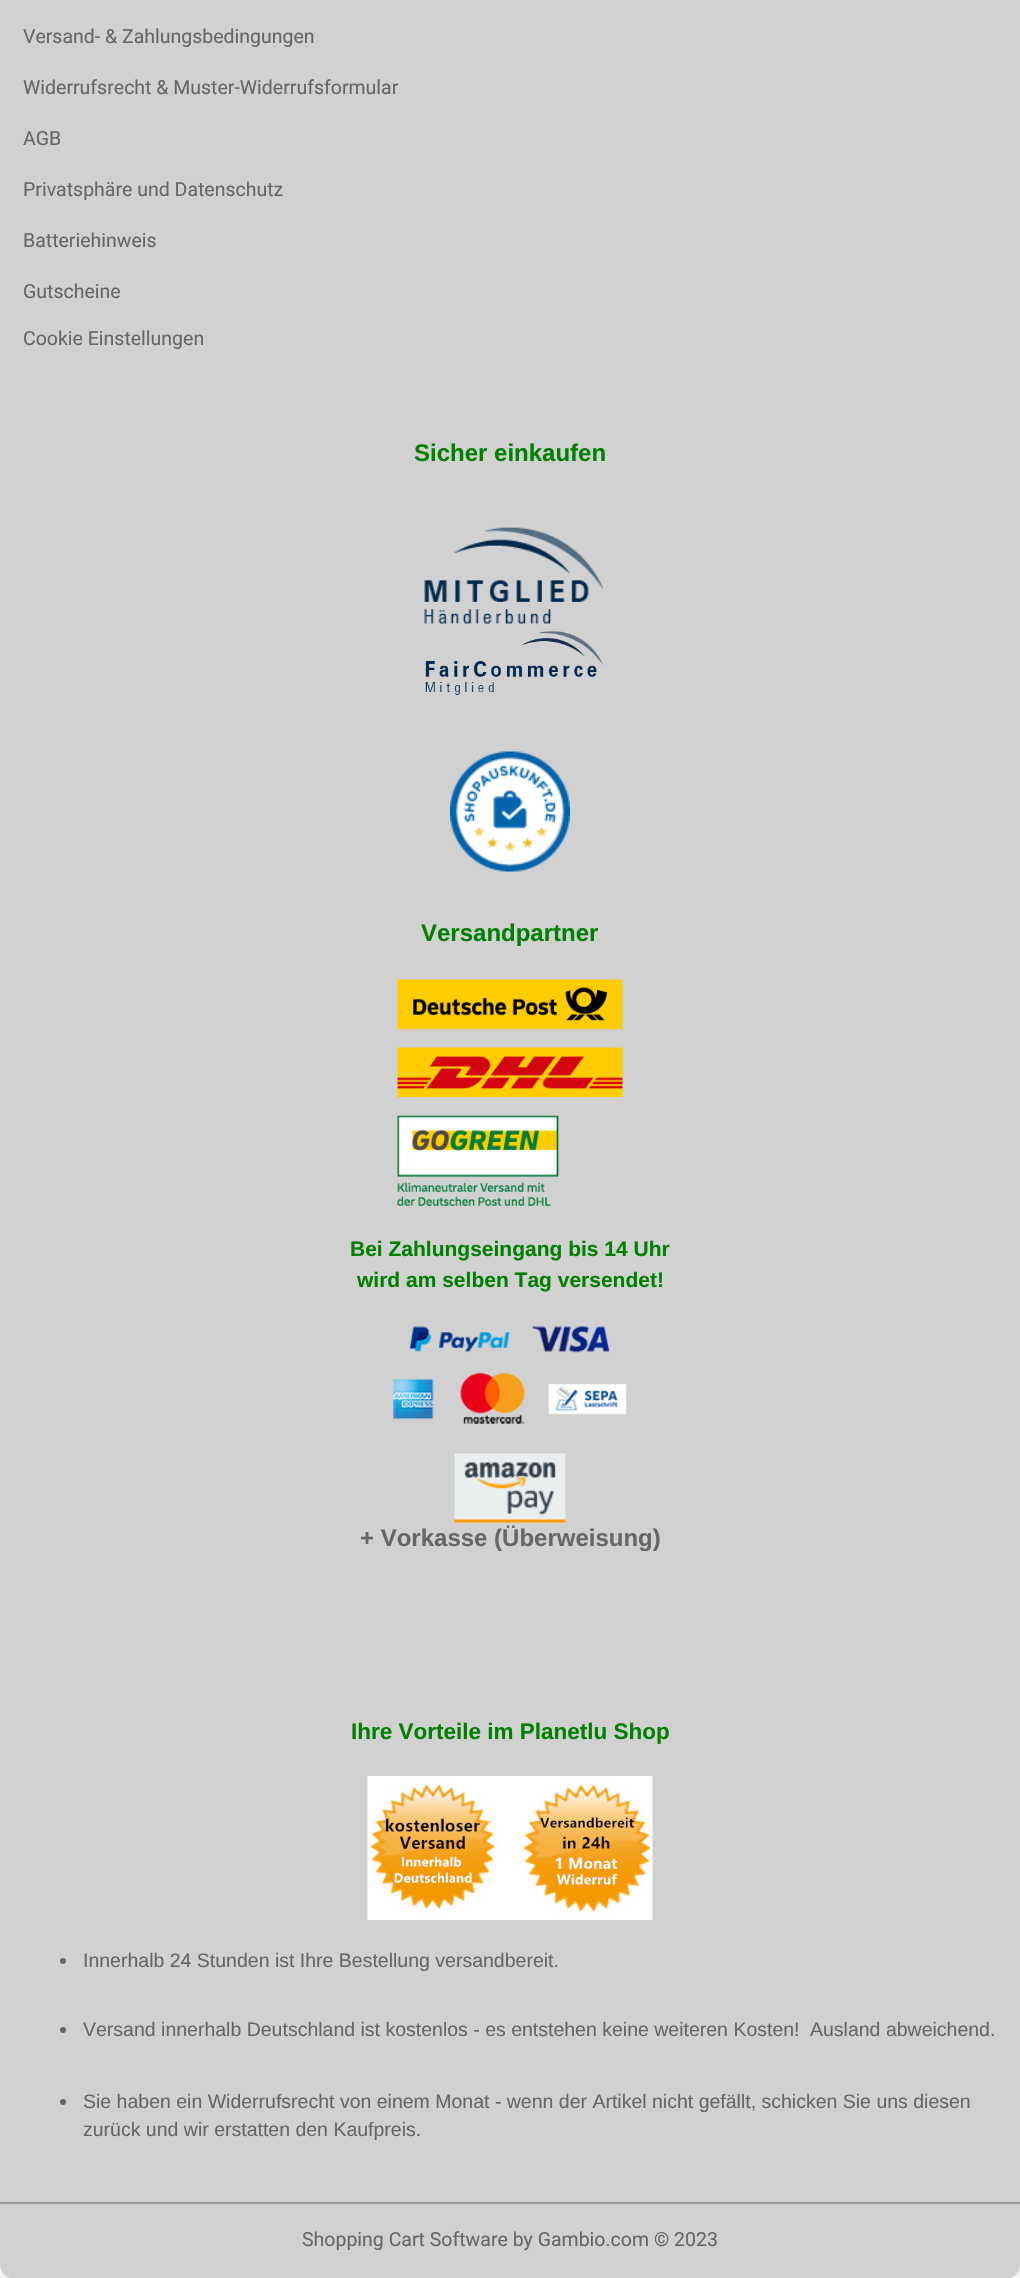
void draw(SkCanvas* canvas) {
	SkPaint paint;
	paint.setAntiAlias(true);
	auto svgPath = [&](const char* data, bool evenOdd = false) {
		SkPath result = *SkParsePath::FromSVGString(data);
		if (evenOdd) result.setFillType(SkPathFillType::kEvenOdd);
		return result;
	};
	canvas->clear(0xfff3f3f3);
	paint.setColor(0xffd1d1d1);
	canvas->drawPath(svgPath("M0-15H1020V2264C1020 2272.5 1013.5 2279 1005 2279H15C6.5 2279 0 2272.5 0 2264Z"), paint);
	paint.setColor(0xff999999);
	canvas->drawRect(SkRect::MakeXYWH(0, 2202, 1020, 2), paint);
	SkFont f1(fontMgr->matchFamilyStyle("Roboto", SkFontStyle::Normal()), 19.5);
	f1.setSubpixel(true);
	paint.setColor(0xff666666);
	canvas->drawString("Versand- & Zahlungsbedingungen", 23, 43, f1, paint);
	canvas->drawString("Widerrufsrecht & Muster-Widerrufsformular", 23, 94, f1, paint);
	canvas->drawString("AGB", 23, 145, f1, paint);
	canvas->drawString("Privatsphäre und Datenschutz", 23, 196, f1, paint);
	canvas->drawString("Batteriehinweis", 23, 247, f1, paint);
	canvas->drawString("Gutscheine", 23, 298, f1, paint);
	canvas->drawString("Cookie Einstellungen", 23, 345, f1, paint);
	SkFont f2(fontMgr->matchFamilyStyle("Liberation Sans", SkFontStyle::Bold()), 24);
	f2.setSubpixel(true);
	paint.setColor(0xff008000);
	canvas->drawString("Sicher einkaufen", 414, 461, f2, paint);
	canvas->drawImageRect(SkImages::DeferredFromEncodedData(SkData::MakeFromFileName("img1.png")), SkRect::MakeXYWH(424, 527, 179, 97), SkSamplingOptions());
	canvas->drawImageRect(SkImages::DeferredFromEncodedData(SkData::MakeFromFileName("img2.png")), SkRect::MakeXYWH(425, 631, 178, 64), SkSamplingOptions());
	canvas->drawImageRect(SkImages::DeferredFromEncodedData(SkData::MakeFromFileName("img3.png")), SkRect::MakeXYWH(450, 751, 120, 121), SkSamplingOptions());
	canvas->drawString("Versandpartner", 421, 941, f2, paint);
	canvas->drawImageRect(SkImages::DeferredFromEncodedData(SkData::MakeFromFileName("img4.png")), SkRect::MakeXYWH(397, 979, 226, 227), SkSamplingOptions());
	SkFont f3(fontMgr->matchFamilyStyle("Liberation Sans", SkFontStyle::Bold()), 21);
	f3.setSubpixel(true);
	canvas->drawString("Bei Zahlungseingang bis 14 Uhr", 350, 1256, f3, paint);
	canvas->drawString("wird am selben Tag versendet!", 357, 1287, f3, paint);
	canvas->drawImageRect(SkImages::DeferredFromEncodedData(SkData::MakeFromFileName("img5.png")), SkRect::MakeXYWH(393, 1326, 234, 98), SkSamplingOptions());
	canvas->drawImageRect(SkImages::DeferredFromEncodedData(SkData::MakeFromFileName("img6.png")), SkRect::MakeXYWH(454, 1453, 112, 70), SkSamplingOptions());
	paint.setColor(0xff666666);
	canvas->drawString("+ Vorkasse (Überweisung)", 360, 1546, f2, paint);
	SkFont f4(fontMgr->matchFamilyStyle("Liberation Sans", SkFontStyle::Bold()), 22.5);
	f4.setSubpixel(true);
	paint.setColor(0xff008000);
	canvas->drawString("Ihre Vorteile im Planetlu Shop", 351, 1739, f4, paint);
	canvas->drawImageRect(SkImages::DeferredFromEncodedData(SkData::MakeFromFileName("img7.png")), SkRect::MakeXYWH(367, 1776, 286, 144), SkSamplingOptions());
	paint.setColor(0xff666666);
	canvas->drawCircle(63, 1961, 3, paint);
	SkFont f5(fontMgr->matchFamilyStyle("Liberation Sans", SkFontStyle::Normal()), 19.5);
	f5.setSubpixel(true);
	canvas->drawString("Innerhalb 24 Stunden ist Ihre Bestellung versandbereit.", 83, 1967, f5, paint);
	canvas->drawCircle(63, 2030, 3, paint);
	canvas->drawString("Versand innerhalb Deutschland ist kostenlos - es entstehen keine weiteren Kosten!", 83, 2036, f5, paint);
	canvas->drawString("Ausland abweichend.", 810, 2036, f5, paint);
	canvas->drawCircle(63, 2102, 3, paint);
	canvas->drawString("Sie haben ein Widerrufsrecht von einem Monat - wenn der Artikel nicht gefällt, schicken Sie uns diesen", 83, 2108, f5, paint);
	canvas->drawString("zurück und wir erstatten den Kaufpreis.", 83, 2136, f5, paint);
	canvas->drawString("Shopping Cart Software by Gambio.com © 2023", 302, 2246, f1, paint);
}
